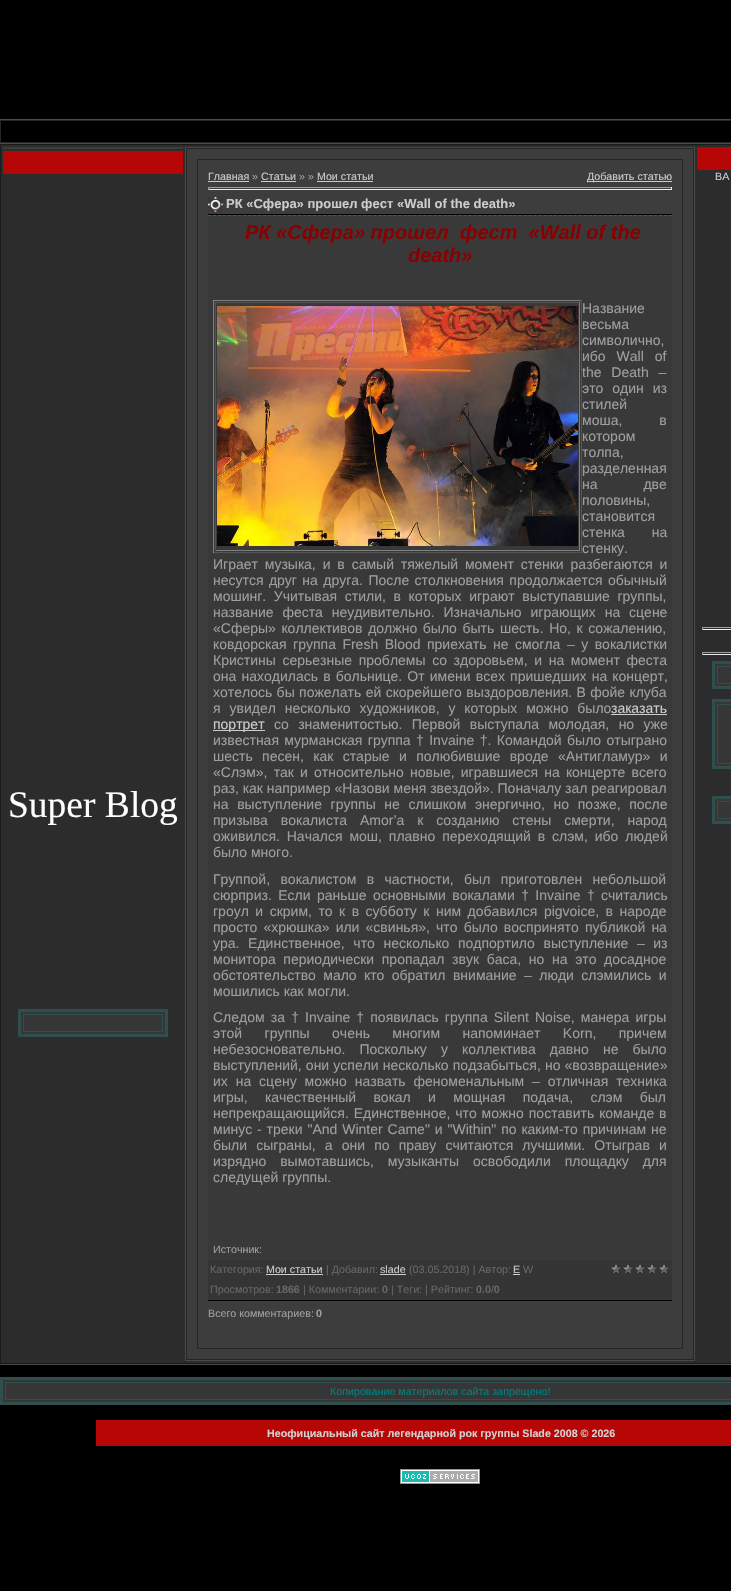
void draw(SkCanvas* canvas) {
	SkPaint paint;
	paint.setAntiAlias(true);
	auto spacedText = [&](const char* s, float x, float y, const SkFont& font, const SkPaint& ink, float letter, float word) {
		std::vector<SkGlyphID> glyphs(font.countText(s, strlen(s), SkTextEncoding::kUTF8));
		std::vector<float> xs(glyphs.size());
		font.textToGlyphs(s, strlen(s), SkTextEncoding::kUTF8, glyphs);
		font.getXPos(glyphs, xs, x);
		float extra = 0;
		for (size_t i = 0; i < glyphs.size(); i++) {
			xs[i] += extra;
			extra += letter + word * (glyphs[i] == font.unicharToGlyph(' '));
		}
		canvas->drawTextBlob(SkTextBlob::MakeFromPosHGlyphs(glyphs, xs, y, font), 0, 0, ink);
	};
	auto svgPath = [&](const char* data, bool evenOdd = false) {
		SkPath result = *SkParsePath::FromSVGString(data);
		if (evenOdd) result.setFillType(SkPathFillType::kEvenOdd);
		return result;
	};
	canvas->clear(0xff000000);
	paint.setColor(0xff494949);
	canvas->drawRect(SkRect::MakeXYWH(0, 119, 731, 1), paint);
	paint.setStroke(true);
	paint.setStrokeWidth(1);
	paint.setColor(0xff262626);
	canvas->drawRect(SkRect::MakeXYWH(0.5, 120.5, 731, 22), paint);
	paint.setStroke(false);
	paint.setColor(0xff494949);
	canvas->drawRect(SkRect::MakeXYWH(0, 143, 731, 1), paint);
	canvas->drawRect(SkRect::MakeXYWH(0, 1364, 731, 1), paint);
	paint.setColor(0xff2c2c2c);
	canvas->drawRect(SkRect::MakeXYWH(0.5, 144.5, 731, 1219), paint);
	paint.setStroke(true);
	paint.setColor(0xff1a1a1a);
	canvas->drawRect(SkRect::MakeXYWH(0.5, 144.5, 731, 1219), paint);
	paint.setColor(0xff494949);
	canvas->drawRect(SkRect::MakeXYWH(185.5, 147.5, 509, 1213), paint);
	paint.setStroke(false);
	paint.setColor(0xff3d3d3d);
	canvas->drawRect(SkRect::MakeXYWH(186.5, 148.5, 507, 1211), paint);
	paint.setStroke(true);
	paint.setColor(0xff262626);
	canvas->drawRect(SkRect::MakeXYWH(186.5, 148.5, 507, 1211), paint);
	canvas->drawRect(SkRect::MakeXYWH(197.5, 159.5, 485, 1189), paint);
	SkFont f1(fontMgr->matchFamilyStyle("Liberation Sans", SkFontStyle::Normal()), 10.7);
	f1.setSubpixel(true);
	paint.setStroke(false);
	paint.setColor(0xffcccccc);
	canvas->drawString("Главная", 208, 180, f1, paint);
	canvas->drawRect(SkRect::MakeXYWH(208, 181, 41, 1), paint);
	paint.setColor(0xff9f9f9f);
	canvas->drawString("»", 252, 180, f1, paint);
	paint.setColor(0xffcccccc);
	canvas->drawString("Статьи", 261, 180, f1, paint);
	canvas->drawRect(SkRect::MakeXYWH(261, 181, 35, 1), paint);
	paint.setColor(0xff9f9f9f);
	canvas->drawString("» »", 299, 180, f1, paint);
	paint.setColor(0xffcccccc);
	canvas->drawString("Мои статьи", 317, 180, f1, paint);
	canvas->drawRect(SkRect::MakeXYWH(317, 181, 56, 1), paint);
	canvas->drawRect(SkRect::MakeXYWH(587, 181, 85, 1), paint);
	canvas->drawString("Добавить статью", 587, 180, f1, paint);
	paint.setColor(0xff9f9f9f);
	canvas->drawRect(SkRect::MakeXYWH(208, 187, 464, 1), paint);
	paint.setColor(0xffeeeeee);
	canvas->drawRect(SkRect::MakeXYWH(671, 187, 1, 3), paint);
	canvas->drawRect(SkRect::MakeXYWH(208, 189, 464, 1), paint);
	paint.setColor(0xff9f9f9f);
	canvas->drawRect(SkRect::MakeXYWH(208, 187, 1, 3), paint);
	canvas->drawImageRect(SkImages::DeferredFromEncodedData(SkData::MakeFromFileName("img1.png")), SkRect::MakeXYWH(208, 197, 15, 15), SkSamplingOptions());
	SkFont f2(fontMgr->matchFamilyStyle("Liberation Sans", SkFontStyle::Bold()), 13);
	f2.setSubpixel(true);
	paint.setColor(0xffcccccc);
	canvas->drawString("РК «Сфера» прошел фест «Wall of the death»", 226, 208, f2, paint);
	paint.setColor(0xff393939);
	canvas->drawRect(SkRect::MakeXYWH(208, 215, 464, 1045), paint);
	paint.setColor(0xff000000);
	canvas->drawRect(SkRect::MakeXYWH(208, 214, 464, 1), paint);
	canvas->drawRect(SkRect::MakeXYWH(208, 1300, 464, 1), paint);
	paint.setStroke(true);
	paint.setColor(0xff555555);
	paint.setPathEffect(SkDashPathEffect::Make({{3, 2.01f}}, 0));
	canvas->drawPath(svgPath("M208 215.5H672"), paint);
	paint.setPathEffect(nullptr);
	SkFont f3(fontMgr->matchFamilyStyle("Liberation Sans", SkFontStyle::BoldItalic()), 20);
	f3.setSubpixel(true);
	paint.setStroke(false);
	paint.setColor(0xff880000);
	canvas->drawString("РК «Сфера» прошел  фест  «Wall of the", 245, 239, f3, paint);
	canvas->drawString("death»", 408, 262, f3, paint);
	paint.setColor(0xff808080);
	canvas->drawRect(SkRect::MakeXYWH(213, 300, 369, 1), paint);
	paint.setColor(0xff555555);
	canvas->drawRect(SkRect::MakeXYWH(581, 300, 1, 253), paint);
	canvas->drawRect(SkRect::MakeXYWH(213, 552, 369, 1), paint);
	paint.setColor(0xff808080);
	canvas->drawRect(SkRect::MakeXYWH(213, 300, 1, 253), paint);
	paint.setColor(0xff555555);
	canvas->drawRect(SkRect::MakeXYWH(215, 302, 365, 1), paint);
	paint.setColor(0xff808080);
	canvas->drawRect(SkRect::MakeXYWH(579, 302, 1, 249), paint);
	canvas->drawRect(SkRect::MakeXYWH(215, 550, 365, 1), paint);
	paint.setColor(0xff555555);
	canvas->drawRect(SkRect::MakeXYWH(215, 302, 1, 249), paint);
	canvas->drawImageRect(SkImages::DeferredFromEncodedData(SkData::MakeFromFileName("img2.png")), SkRect::MakeXYWH(217, 306, 361, 240), SkSamplingOptions());
	SkFont f4(fontMgr->matchFamilyStyle("Liberation Sans", SkFontStyle::Normal()), 14);
	f4.setSubpixel(true);
	paint.setColor(0xff9f9f9f);
	canvas->drawString("Название", 582, 313, f4, paint);
	canvas->drawString("весьма", 582, 329, f4, paint);
	canvas->drawString("символично,", 582, 345, f4, paint);
	spacedText("ибо Wall of", 582, 361, f4, paint, 0, 7);
	spacedText("the Death –", 582, 377, f4, paint, 0, 6);
	spacedText("это один из", 582, 393, f4, paint, 0, 5);
	canvas->drawString("стилей", 582, 409, f4, paint);
	spacedText("моша, в", 582, 425, f4, paint, 0, 33);
	canvas->drawString("котором", 582, 441, f4, paint);
	canvas->drawString("толпа,", 582, 457, f4, paint);
	canvas->drawString("разделенная", 582, 473, f4, paint);
	spacedText("на две", 582, 489, f4, paint, 0, 42);
	canvas->drawString("половины,", 582, 505, f4, paint);
	canvas->drawString("становится", 582, 521, f4, paint);
	spacedText("стенка на", 582, 537, f4, paint, 0, 23);
	canvas->drawString("стенку.", 582, 553, f4, paint);
	spacedText("Играет музыка, и в самый тяжелый момент стенки разбегаются и", 213, 569, f4, paint, 0, 3);
	spacedText("несутся друг на друга. После столкновения продолжается обычный", 213, 585, f4, paint, 0, 1.5);
	spacedText("мошинг. Учитывая стили, в которых играют выступавшие группы,", 213, 601, f4, paint, 0, 3.75);
	spacedText("название феста неудивительно. Изначально играющих на сцене", 213, 617, f4, paint, 0, 5);
	spacedText("«Сферы» коллективов должно было быть шесть. Но, к сожалению,", 213, 633, f4, paint, 0, 1.75);
	spacedText("ковдорская группа Fresh Blood приехать не смогла – у вокалистки", 213, 649, f4, paint, 0, 2.6);
	spacedText("Кристины серьезные проблемы со здоровьем, и на момент феста", 213, 665, f4, paint, 0, 2.75);
	spacedText("она находилась в больнице. От имени всех пришедших на концерт,", 213, 681, f4, paint, 0, 1.25);
	spacedText("хотелось бы пожелать ей скорейшего выздоровления. В фойе клуба", 213, 697, f4, paint, 0, 0.5);
	spacedText("я увидел несколько художников, у которых можно было", 213, 713, f4, paint, 0, 5);
	paint.setColor(0xffcccccc);
	canvas->drawString("заказать", 611, 713, f4, paint);
	canvas->drawRect(SkRect::MakeXYWH(611, 714, 56, 1), paint);
	canvas->drawRect(SkRect::MakeXYWH(213, 730, 52, 1), paint);
	canvas->drawString("портрет", 213, 729, f4, paint);
	paint.setColor(0xff9f9f9f);
	spacedText("со знаменитостью. Первой выступала молодая, но уже", 274, 729, f4, paint, 0, 5.5);
	spacedText("известная мурманская группа † Invaine †. Командой было отыграно", 213, 745, f4, paint, 0, 1.5);
	spacedText("шесть песен, как старые и полюбившие вроде «Антигламур» и", 213, 761, f4, paint, 0, 5.5);
	spacedText("«Слэм», так и относительно новые, игравшиеся на концерте всего", 213, 777, f4, paint, 0, 2.25);
	canvas->drawString("раз, как например «Назови меня звездой». Поначалу зал реагировал", 213, 793, f4, paint);
	spacedText("на выступление группы не слишком энергично, но позже, после", 213, 809, f4, paint, 0, 4.75);
	spacedText("призыва вокалиста Amor’a к созданию стены смерти, народ", 213, 825, f4, paint, 0, 9);
	spacedText("оживился. Начался мош, плавно переходящий в слэм, ибо людей", 213, 841, f4, paint, 0, 3);
	canvas->drawString("было много.", 213, 857, f4, paint);
	spacedText("Группой, вокалистом в частности, был приготовлен небольшой", 213, 884, f4, paint, 0, 6.5);
	spacedText("сюрприз. Если раньше основными вокалами † Invaine † считались", 213, 900, f4, paint, 0, 2.5);
	spacedText("гроул и скрим, то к в субботу к ним добавился рigvoice, в народе", 213, 916, f4, paint, 0, 2.6);
	spacedText("просто «хрюшка» или «свинья», что было воспринято публикой на", 213, 932, f4, paint, 0, 2.25);
	spacedText("ура. Единственное, что несколько подпортило выступление – из", 213, 948, f4, paint, 0, 4.75);
	spacedText("монитора периодически пропадал звук баса, но на это досадное", 213, 964, f4, paint, 0, 3.75);
	spacedText("обстоятельство мало кто обратил внимание – люди слэмились и", 213, 980, f4, paint, 0, 3.5);
	canvas->drawString("мошились как могли.", 213, 996, f4, paint);
	spacedText("Следом за † Invaine † появилась группа Silent Noise, манера игры", 213, 1022, f4, paint, 0, 2.25);
	spacedText("этой группы очень многим напоминает Korn, причем", 213, 1038, f4, paint, 0, 18.5);
	spacedText("небезосновательно. Поскольку у коллектива давно не было", 213, 1054, f4, paint, 0, 10.25);
	spacedText("выступлений, они успели несколько подзабыться, но «возвращение»", 213, 1070, f4, paint, 0, 0.25);
	spacedText("их на сцену можно назвать феноменальным – отличная техника", 213, 1086, f4, paint, 0, 4);
	spacedText("игры, качественный вокал и мощная подача, слэм был", 213, 1102, f4, paint, 0, 13.5);
	spacedText("непрекращающийся. Единственное, что можно поставить команде в", 213, 1118, f4, paint, 0, 1);
	spacedText("минус - треки \"And Winter Came\" и \"Within\" по каким-то причинам не", 213, 1134, f4, paint, 0, 1);
	spacedText("были сыграны, а они по праву считаются лучшими. Отыграв и", 213, 1150, f4, paint, 0, 5.25);
	spacedText("изрядно вымотавшись, музыканты освободили площадку для", 213, 1166, f4, paint, 0, 10);
	canvas->drawString("следущей группы.", 213, 1182, f4, paint);
	canvas->drawString("Источник:", 213, 1253, f1, paint);
	paint.setColor(0xff353535);
	canvas->drawRect(SkRect::MakeXYWH(208, 1260, 464, 40), paint);
	paint.setColor(0xff666666);
	canvas->drawString("Категория:", 210, 1273, f1, paint);
	paint.setColor(0xffcccccc);
	canvas->drawString("Мои статьи", 266, 1273, f1, paint);
	canvas->drawRect(SkRect::MakeXYWH(266, 1274, 57, 1), paint);
	paint.setColor(0xff666666);
	canvas->drawString("| Добавил:", 326, 1273, f1, paint);
	paint.setColor(0xffcccccc);
	canvas->drawString("slade", 380, 1273, f1, paint);
	canvas->drawRect(SkRect::MakeXYWH(380, 1274, 26, 1), paint);
	paint.setColor(0xff666666);
	canvas->drawString("(03.05.2018) | Автор:", 409, 1273, f1, paint);
	paint.setColor(0xffcccccc);
	canvas->drawString("E", 513, 1273, f1, paint);
	canvas->drawRect(SkRect::MakeXYWH(513, 1274, 7, 1), paint);
	paint.setColor(0xff666666);
	canvas->drawString("W", 523, 1273, f1, paint);
	canvas->drawImageRect(SkImages::DeferredFromEncodedData(SkData::MakeFromFileName("img3.png")), SkRect::MakeXYWH(611, 1264, 58, 10), SkSamplingOptions());
	canvas->drawString("Просмотров:", 210, 1293, f1, paint);
	SkFont f5(fontMgr->matchFamilyStyle("Liberation Sans", SkFontStyle::Bold()), 10.7);
	f5.setSubpixel(true);
	canvas->drawString("1866", 276, 1293, f5, paint);
	canvas->drawString("| Комментарии:", 303, 1293, f1, paint);
	canvas->drawString("0", 382, 1293, f5, paint);
	canvas->drawString("| Теги: | Рейтинг:", 391, 1293, f1, paint);
	canvas->drawString("0.0 0", 476, 1293, f5, paint);
	canvas->drawString("/", 491, 1293, f1, paint);
	paint.setColor(0xff9f9f9f);
	canvas->drawString("Всего комментариев:", 208, 1317, f1, paint);
	canvas->drawString("0", 316, 1317, f5, paint);
	paint.setColor(0xffb60605);
	canvas->drawRect(SkRect::MakeXYWH(697, 147, 34, 23), paint);
	paint.setColor(0xffcccccc);
	canvas->drawString("ВА", 715, 180, f1, paint);
	paint.setColor(0xff9f9f9f);
	canvas->drawRect(SkRect::MakeXYWH(702, 627, 29, 1), paint);
	paint.setColor(0xffeeeeee);
	canvas->drawRect(SkRect::MakeXYWH(702, 629, 29, 1), paint);
	paint.setColor(0xff9f9f9f);
	canvas->drawRect(SkRect::MakeXYWH(702, 627, 1, 3), paint);
	canvas->drawRect(SkRect::MakeXYWH(702, 652, 29, 1), paint);
	paint.setColor(0xffeeeeee);
	canvas->drawRect(SkRect::MakeXYWH(702, 654, 29, 1), paint);
	paint.setColor(0xff9f9f9f);
	canvas->drawRect(SkRect::MakeXYWH(702, 652, 1, 3), paint);
	paint.setColor(0xff363636);
	canvas->drawRect(SkRect::MakeXYWH(713.5, 662.5, 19, 25), paint);
	paint.setStroke(true);
	paint.setStrokeWidth(3);
	paint.setColor(0xff2f4f4f);
	canvas->drawRect(SkRect::MakeXYWH(713.5, 662.5, 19, 25), paint);
	paint.setStrokeWidth(1);
	canvas->drawRect(SkRect::MakeXYWH(717.5, 666.5, 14, 17), paint);
	paint.setStroke(false);
	paint.setColor(0xff363636);
	canvas->drawRect(SkRect::MakeXYWH(713.5, 700.5, 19, 67), paint);
	paint.setStroke(true);
	paint.setStrokeWidth(3);
	paint.setColor(0xff2f4f4f);
	canvas->drawRect(SkRect::MakeXYWH(713.5, 700.5, 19, 67), paint);
	paint.setStrokeWidth(1);
	canvas->drawRect(SkRect::MakeXYWH(717.5, 704.5, 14, 59), paint);
	paint.setStroke(false);
	paint.setColor(0xff363636);
	canvas->drawRect(SkRect::MakeXYWH(713.5, 797.5, 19, 25), paint);
	paint.setStroke(true);
	paint.setStrokeWidth(3);
	paint.setColor(0xff2f4f4f);
	canvas->drawRect(SkRect::MakeXYWH(713.5, 797.5, 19, 25), paint);
	paint.setStrokeWidth(1);
	canvas->drawRect(SkRect::MakeXYWH(717.5, 801.5, 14, 17), paint);
	paint.setStroke(false);
	paint.setColor(0xff3c3c3c);
	canvas->drawRect(SkRect::MakeXYWH(3, 147, 180, 2), paint);
	paint.setColor(0xffb60605);
	canvas->drawRect(SkRect::MakeXYWH(3, 151, 180, 23), paint);
	SkFont f6(fontMgr->matchFamilyStyle("Liberation Serif", SkFontStyle::Normal()), 37.5);
	f6.setSubpixel(true);
	paint.setColor(0xffffffff);
	canvas->drawString("Super Blog", 8, 817, f6, paint);
	paint.setColor(0xff363636);
	canvas->drawRect(SkRect::MakeXYWH(19.5, 1010.5, 147, 25), paint);
	paint.setStroke(true);
	paint.setStrokeWidth(3);
	paint.setColor(0xff2f4f4f);
	canvas->drawRect(SkRect::MakeXYWH(19.5, 1010.5, 147, 25), paint);
	paint.setStrokeWidth(1);
	canvas->drawRect(SkRect::MakeXYWH(23.5, 1014.5, 139, 17), paint);
	paint.setStroke(false);
	paint.setColor(0xff363636);
	canvas->drawRect(SkRect::MakeXYWH(1.5, 1378.5, 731, 25), paint);
	paint.setStroke(true);
	paint.setStrokeWidth(3);
	paint.setColor(0xff2f4f4f);
	canvas->drawRect(SkRect::MakeXYWH(1.5, 1378.5, 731, 25), paint);
	paint.setStrokeWidth(1);
	canvas->drawRect(SkRect::MakeXYWH(5.5, 1382.5, 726, 17), paint);
	paint.setStroke(false);
	paint.setColor(0xff008080);
	canvas->drawString("Копирование материалов сайта запрещено!", 330, 1395, f1, paint);
	paint.setColor(0xffb60605);
	canvas->drawRect(SkRect::MakeXYWH(96, 1420, 635, 26), paint);
	paint.setColor(0xffd3d3d3);
	canvas->drawString("Неофициальный сайт легендарной рок группы Slade 2008 © 2026", 267, 1437, f5, paint);
	canvas->drawImageRect(SkImages::DeferredFromEncodedData(SkData::MakeFromFileName("img4.png")), SkRect::MakeXYWH(400, 1469, 80, 15), SkSamplingOptions());
}
